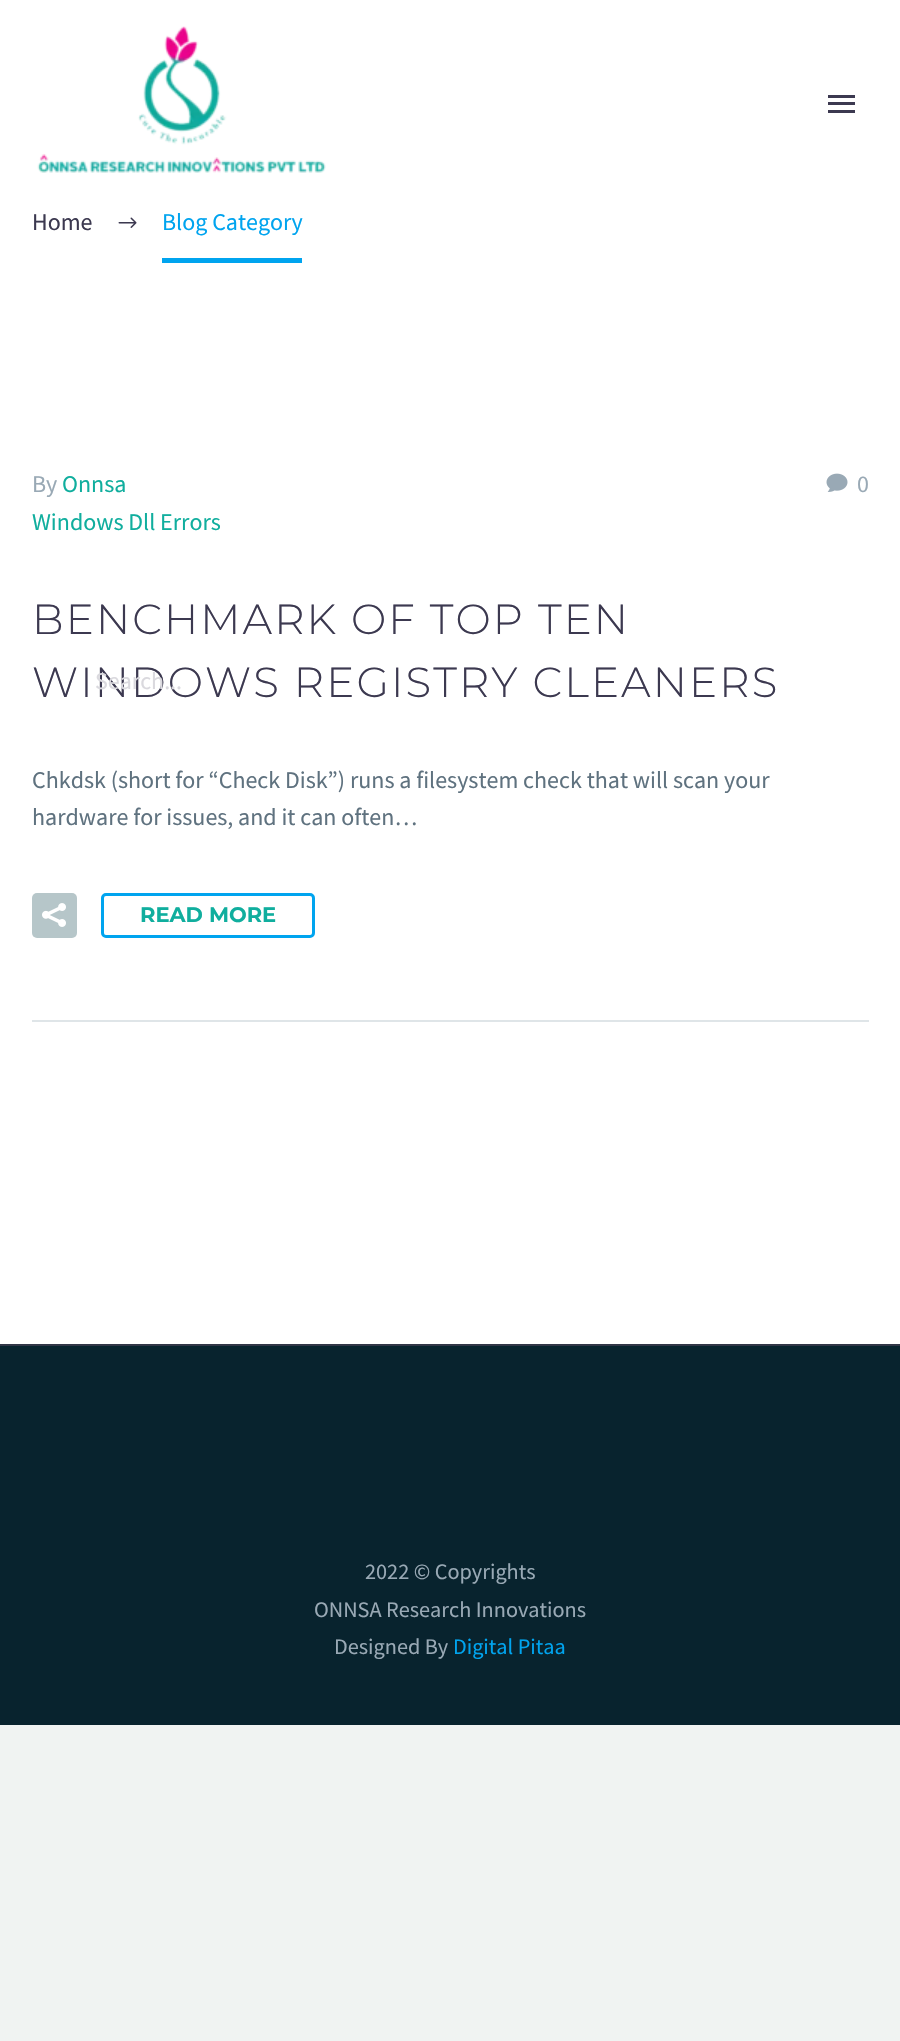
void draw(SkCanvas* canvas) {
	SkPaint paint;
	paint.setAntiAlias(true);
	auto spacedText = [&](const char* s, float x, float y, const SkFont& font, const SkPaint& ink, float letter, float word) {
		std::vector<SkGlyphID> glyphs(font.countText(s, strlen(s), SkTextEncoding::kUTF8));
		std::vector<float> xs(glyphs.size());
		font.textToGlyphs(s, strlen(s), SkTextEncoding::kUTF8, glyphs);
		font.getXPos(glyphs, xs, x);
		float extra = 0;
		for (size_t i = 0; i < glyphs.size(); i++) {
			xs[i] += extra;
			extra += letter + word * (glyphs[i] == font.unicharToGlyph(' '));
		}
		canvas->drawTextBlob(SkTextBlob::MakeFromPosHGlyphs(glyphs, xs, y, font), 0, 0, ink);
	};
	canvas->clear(0xfff0f3f2);
	paint.setColor(0xffffffff);
	canvas->drawRect(SkRect::MakeXYWH(0, 206, 900, 1138), paint);
	SkFont f1(fontMgr->matchFamilyStyle("Source Sans Pro", SkFontStyle::Normal()), 24);
	f1.setSubpixel(true);
	paint.setColor(0xff3c3950);
	canvas->drawString("Home", 32, 230, f1, paint);
	canvas->drawImageRect(SkImages::DeferredFromEncodedData(SkData::MakeFromFileName("img1.png")), SkRect::MakeXYWH(118, 217, 19, 11), SkSamplingOptions());
	paint.setColor(0xff00a4ef);
	canvas->drawRect(SkRect::MakeXYWH(162, 258, 140, 5), paint);
	canvas->drawString("Blog Category", 162, 230, f1, paint);
	paint.setColor(0xffdfe5e8);
	canvas->drawRect(SkRect::MakeXYWH(32, 1020, 837, 2), paint);
	paint.setColor(0xff99a9b5);
	canvas->drawString("By", 32, 492, f1, paint);
	paint.setColor(0xff10ae9e);
	canvas->drawString("Onnsa", 62, 492, f1, paint);
	canvas->drawString("Windows Dll Errors", 32, 530, f1, paint);
	canvas->drawImageRect(SkImages::DeferredFromEncodedData(SkData::MakeFromFileName("img2.png")), SkRect::MakeXYWH(826, 473, 22, 19), SkSamplingOptions());
	paint.setColor(0xff99a9b5);
	canvas->drawString("0", 857, 492, f1, paint);
	SkFont f2(fontMgr->matchFamilyStyle("Montserrat", SkFontStyle(300, SkFontStyle::kNormal_Width, SkFontStyle::kUpright_Slant)), 42);
	f2.setSubpixel(true);
	paint.setColor(0xff3c3950);
	spacedText("BENCHMARK OF TOP TEN", 32, 634, f2, paint, 2.1, 0);
	spacedText("WINDOWS REGISTRY CLEANERS", 32, 697, f2, paint, 2.1, 0);
	paint.setColor(0xff5f727f);
	canvas->drawString("Chkdsk (short for “Check Disk”) runs a filesystem check that will scan your", 32, 788, f1, paint);
	canvas->drawString("hardware for issues, and it can often…", 32, 825, f1, paint);
	paint.setColor(0xffb6c6c9);
	canvas->drawRoundRect(SkRect::MakeXYWH(32, 893, 45, 45), 5, 5, paint);
	canvas->drawImageRect(SkImages::DeferredFromEncodedData(SkData::MakeFromFileName("img3.png")), SkRect::MakeXYWH(42, 903, 24, 24), SkSamplingOptions());
	paint.setStroke(true);
	paint.setStrokeWidth(3);
	paint.setColor(0xff00a4ef);
	canvas->drawRoundRect(SkRect::MakeXYWH(102.5, 894.5, 211, 42), 3.5, 3.5, paint);
	SkFont f3(fontMgr->matchFamilyStyle("Montserrat", SkFontStyle::Bold()), 21);
	f3.setSubpixel(true);
	paint.setStroke(false);
	paint.setColor(0xff10ae9e);
	canvas->drawString("READ MORE", 140, 922, f3, paint);
	paint.setColor(0xffffffff);
	canvas->drawRect(SkRect::MakeXYWH(0, 0, 900, 206), paint);
	canvas->drawImageRect(SkImages::DeferredFromEncodedData(SkData::MakeFromFileName("img4.png")), SkRect::MakeXYWH(37, 26, 289, 147), SkSamplingOptions());
	paint.setColor(0xff3c3950);
	canvas->drawRect(SkRect::MakeXYWH(828, 95, 27, 3), paint);
	canvas->drawRect(SkRect::MakeXYWH(828, 102, 27, 3), paint);
	canvas->drawRect(SkRect::MakeXYWH(828, 110, 27, 3), paint);
	paint.setColor(0xffdad9de);
	canvas->drawString("Search...", 95, 689, f1, paint);
	paint.setColor(0xff08232e);
	canvas->drawRect(SkRect::MakeXYWH(0, 1346, 900, 379), paint);
	paint.setColor(0xff313646);
	canvas->drawRect(SkRect::MakeXYWH(0, 1344, 900, 2), paint);
	SkFont f4(fontMgr->matchFamilyStyle("Source Sans Pro", SkFontStyle::Normal()), 22.25);
	f4.setSubpixel(true);
	paint.setColor(0xff99a9b5);
	canvas->drawString("2022 © Copyrights", 365, 1579, f4, paint);
	canvas->drawString("ONNSA Research Innovations", 314, 1617, f4, paint);
	canvas->drawString("Designed By", 334, 1654, f4, paint);
	paint.setColor(0xff00a4ef);
	canvas->drawString("Digital Pitaa", 453, 1654, f4, paint);
}
